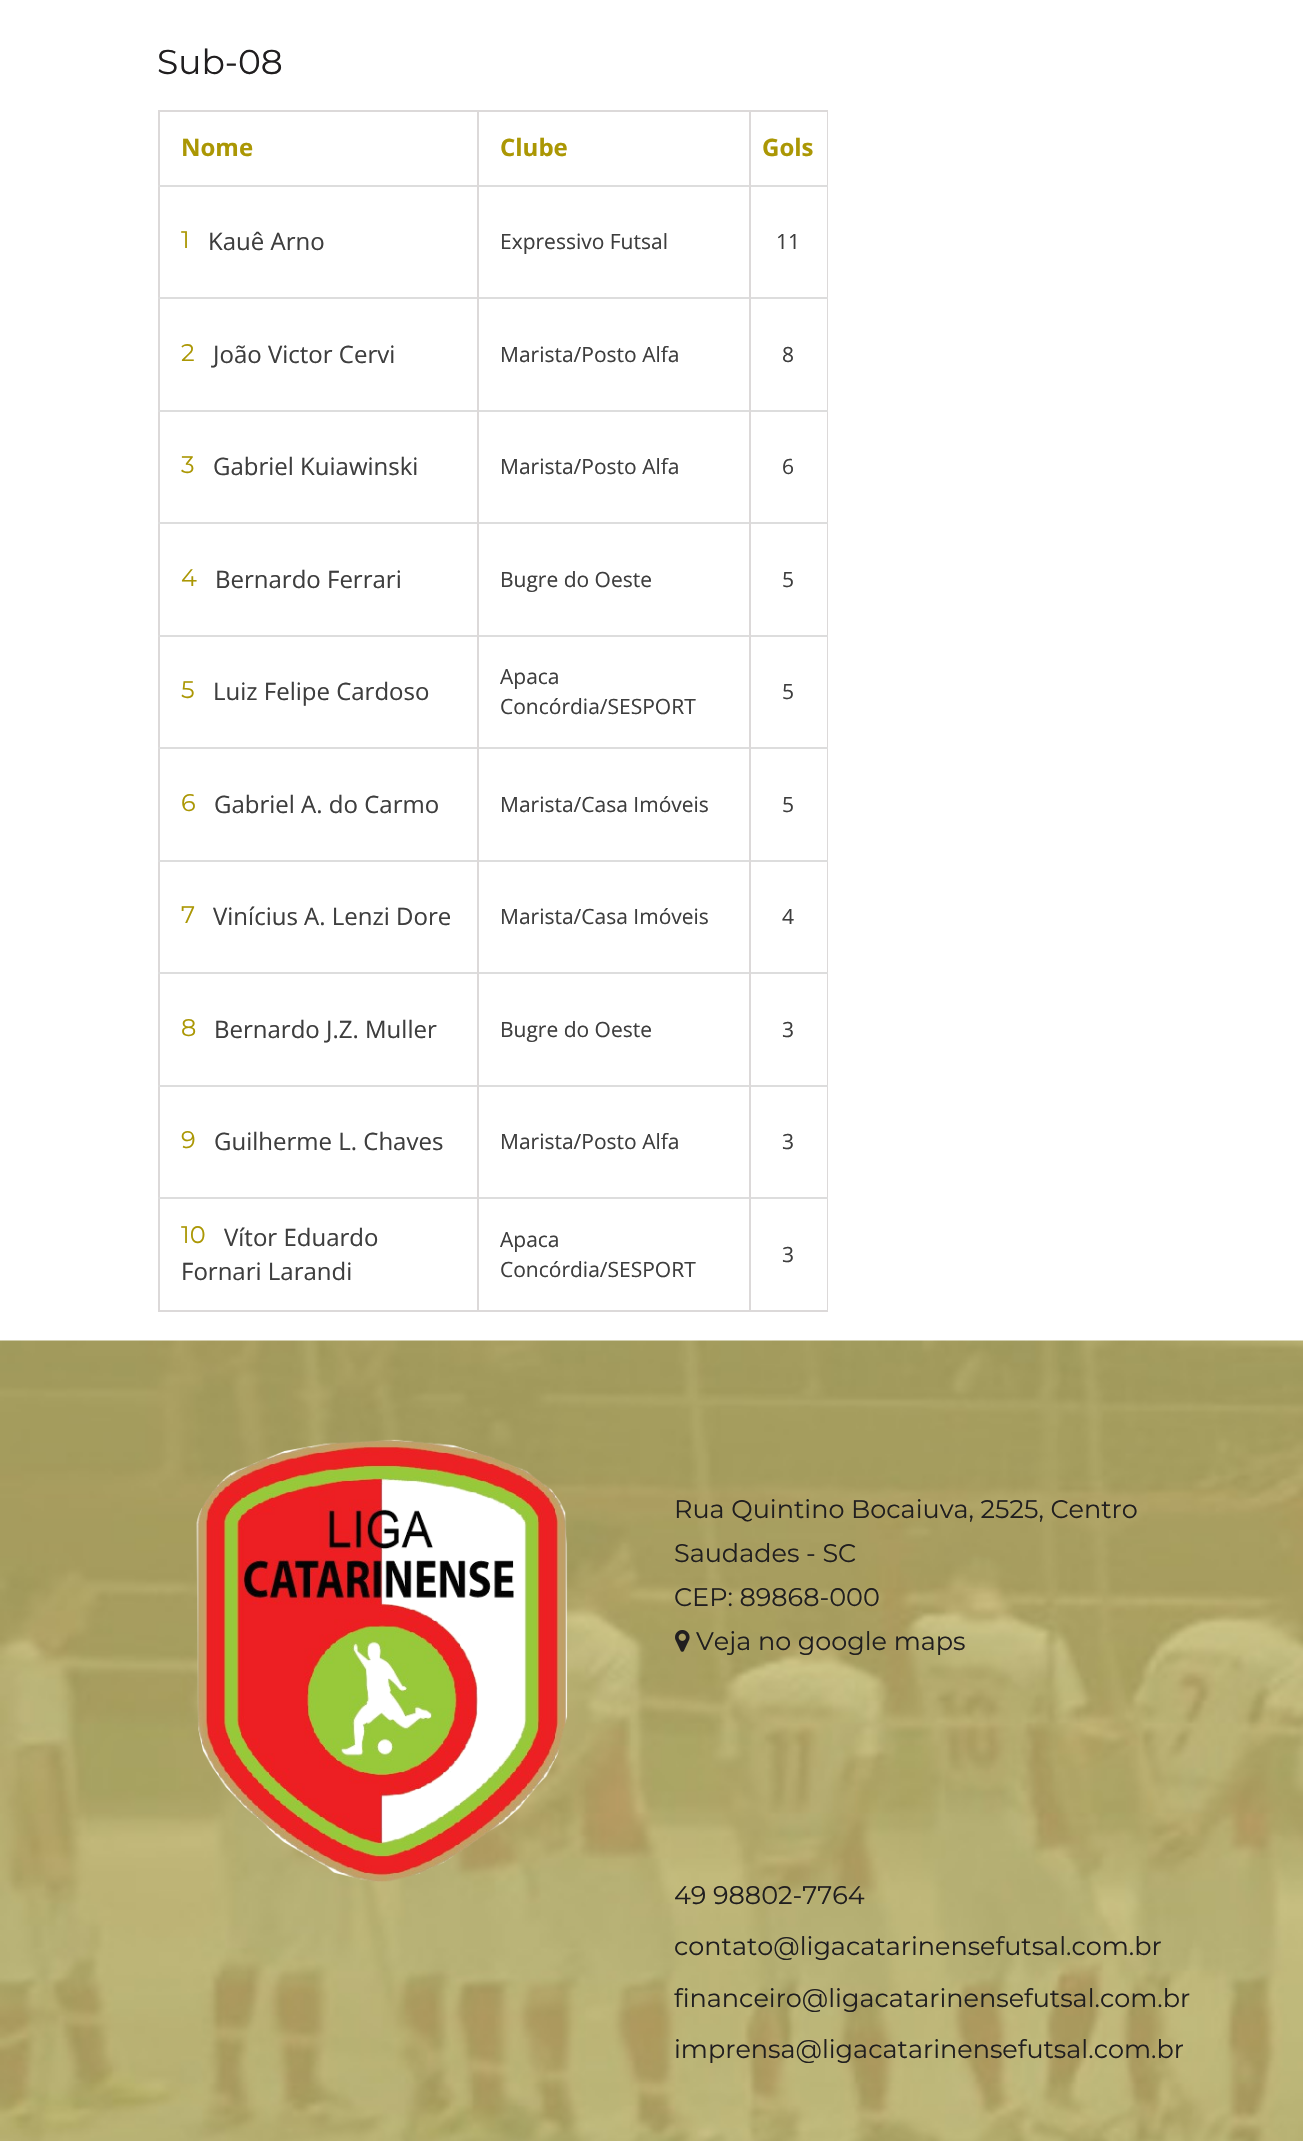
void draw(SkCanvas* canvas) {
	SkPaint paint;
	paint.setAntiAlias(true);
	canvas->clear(0xffffffff);
	SkFont f1(fontMgr->matchFamilyStyle("Montserrat", SkFontStyle::Normal()), 34.5);
	f1.setSubpixel(true);
	paint.setColor(0xff201e1f);
	canvas->drawString("Sub-08", 157, 74, f1, paint);
	paint.setColor(0xffdcd9d9);
	canvas->drawRect(SkRect::MakeXYWH(158, 110, 670, 2), paint);
	canvas->drawRect(SkRect::MakeXYWH(827, 110, 1, 1201), paint);
	canvas->drawRect(SkRect::MakeXYWH(158, 1310, 670, 2), paint);
	canvas->drawRect(SkRect::MakeXYWH(158, 110, 2, 1201), paint);
	SkFont f2(fontMgr->matchFamilyStyle("Open Sans", SkFontStyle::Bold()), 24);
	f2.setSubpixel(true);
	paint.setColor(0xffab9704);
	canvas->drawString("Nome", 181, 156, f2, paint);
	canvas->drawString("Clube", 500, 156, f2, paint);
	canvas->drawString("Gols", 762, 156, f2, paint);
	paint.setColor(0xffdddddd);
	canvas->drawRect(SkRect::MakeXYWH(158, 185, 670, 2), paint);
	canvas->drawRect(SkRect::MakeXYWH(158, 297, 670, 2), paint);
	canvas->drawRect(SkRect::MakeXYWH(158, 410, 670, 2), paint);
	canvas->drawRect(SkRect::MakeXYWH(158, 522, 670, 2), paint);
	canvas->drawRect(SkRect::MakeXYWH(158, 635, 670, 2), paint);
	canvas->drawRect(SkRect::MakeXYWH(158, 747, 670, 2), paint);
	canvas->drawRect(SkRect::MakeXYWH(158, 860, 670, 2), paint);
	canvas->drawRect(SkRect::MakeXYWH(158, 972, 670, 2), paint);
	canvas->drawRect(SkRect::MakeXYWH(158, 1085, 670, 2), paint);
	canvas->drawRect(SkRect::MakeXYWH(158, 1197, 670, 2), paint);
	paint.setColor(0xffdcd9d9);
	canvas->drawRect(SkRect::MakeXYWH(477, 1197, 2, 114), paint);
	canvas->drawRect(SkRect::MakeXYWH(477, 1085, 2, 114), paint);
	canvas->drawRect(SkRect::MakeXYWH(477, 972, 2, 114), paint);
	canvas->drawRect(SkRect::MakeXYWH(477, 860, 2, 114), paint);
	canvas->drawRect(SkRect::MakeXYWH(477, 747, 2, 114), paint);
	canvas->drawRect(SkRect::MakeXYWH(477, 635, 2, 114), paint);
	canvas->drawRect(SkRect::MakeXYWH(477, 522, 2, 114), paint);
	canvas->drawRect(SkRect::MakeXYWH(477, 410, 2, 114), paint);
	canvas->drawRect(SkRect::MakeXYWH(477, 297, 2, 114), paint);
	canvas->drawRect(SkRect::MakeXYWH(477, 110, 2, 189), paint);
	SkFont f3(fontMgr->matchFamilyStyle("Montserrat", SkFontStyle::Normal()), 24);
	f3.setSubpixel(true);
	paint.setColor(0xffab9704);
	canvas->drawString("1", 181, 248, f3, paint);
	SkFont f4(fontMgr->matchFamilyStyle("Open Sans", SkFontStyle::Normal()), 24);
	f4.setSubpixel(true);
	paint.setColor(0xff3e3e3e);
	canvas->drawString("Kauê Arno", 208, 250, f4, paint);
	paint.setColor(0xffdcd9d9);
	canvas->drawRect(SkRect::MakeXYWH(749, 1197, 2, 114), paint);
	canvas->drawRect(SkRect::MakeXYWH(749, 1085, 2, 114), paint);
	canvas->drawRect(SkRect::MakeXYWH(749, 972, 2, 114), paint);
	canvas->drawRect(SkRect::MakeXYWH(749, 860, 2, 114), paint);
	canvas->drawRect(SkRect::MakeXYWH(749, 747, 2, 114), paint);
	canvas->drawRect(SkRect::MakeXYWH(749, 635, 2, 114), paint);
	canvas->drawRect(SkRect::MakeXYWH(749, 522, 2, 114), paint);
	canvas->drawRect(SkRect::MakeXYWH(749, 410, 2, 114), paint);
	canvas->drawRect(SkRect::MakeXYWH(749, 297, 2, 114), paint);
	canvas->drawRect(SkRect::MakeXYWH(749, 110, 2, 189), paint);
	SkFont f5(fontMgr->matchFamilyStyle("Open Sans", SkFontStyle::Normal()), 21);
	f5.setSubpixel(true);
	paint.setColor(0xff3e3e3e);
	canvas->drawString("Expressivo Futsal", 500, 249, f5, paint);
	canvas->drawString("11", 776, 249, f5, paint);
	paint.setColor(0xffab9704);
	canvas->drawString("2", 181, 361, f3, paint);
	paint.setColor(0xff3e3e3e);
	canvas->drawString("João Victor Cervi", 213, 363, f4, paint);
	canvas->drawString("Marista/Posto Alfa", 500, 362, f5, paint);
	canvas->drawString("8", 782, 362, f5, paint);
	paint.setColor(0xffab9704);
	canvas->drawString("3", 181, 473, f3, paint);
	paint.setColor(0xff3e3e3e);
	canvas->drawString("Gabriel Kuiawinski", 213, 475, f4, paint);
	canvas->drawString("Marista/Posto Alfa", 500, 474, f5, paint);
	canvas->drawString("6", 782, 474, f5, paint);
	paint.setColor(0xffab9704);
	canvas->drawString("4", 181, 586, f3, paint);
	paint.setColor(0xff3e3e3e);
	canvas->drawString("Bernardo Ferrari", 215, 588, f4, paint);
	canvas->drawString("Bugre do Oeste", 500, 587, f5, paint);
	canvas->drawString("5", 782, 587, f5, paint);
	paint.setColor(0xffab9704);
	canvas->drawString("5", 181, 698, f3, paint);
	paint.setColor(0xff3e3e3e);
	canvas->drawString("Luiz Felipe Cardoso", 213, 700, f4, paint);
	canvas->drawString("Apaca", 500, 684, f5, paint);
	canvas->drawString("Concórdia/SESPORT", 500, 714, f5, paint);
	canvas->drawString("5", 782, 699, f5, paint);
	paint.setColor(0xffab9704);
	canvas->drawString("6", 181, 811, f3, paint);
	paint.setColor(0xff3e3e3e);
	canvas->drawString("Gabriel A. do Carmo", 214, 813, f4, paint);
	canvas->drawString("Marista/Casa Imóveis", 500, 812, f5, paint);
	canvas->drawString("5", 782, 812, f5, paint);
	paint.setColor(0xffab9704);
	canvas->drawString("7", 181, 923, f3, paint);
	paint.setColor(0xff3e3e3e);
	canvas->drawString("Vinícius A. Lenzi Dore", 213, 925, f4, paint);
	canvas->drawString("Marista/Casa Imóveis", 500, 924, f5, paint);
	canvas->drawString("4", 782, 924, f5, paint);
	paint.setColor(0xffab9704);
	canvas->drawString("8", 181, 1036, f3, paint);
	paint.setColor(0xff3e3e3e);
	canvas->drawString("Bernardo J.Z. Muller", 214, 1038, f4, paint);
	canvas->drawString("Bugre do Oeste", 500, 1037, f5, paint);
	canvas->drawString("3", 782, 1037, f5, paint);
	paint.setColor(0xffab9704);
	canvas->drawString("9", 181, 1148, f3, paint);
	paint.setColor(0xff3e3e3e);
	canvas->drawString("Guilherme L. Chaves", 214, 1150, f4, paint);
	canvas->drawString("Marista/Posto Alfa", 500, 1149, f5, paint);
	canvas->drawString("3", 782, 1149, f5, paint);
	paint.setColor(0xffab9704);
	canvas->drawString("10", 181, 1243, f3, paint);
	paint.setColor(0xff3e3e3e);
	canvas->drawString("Vítor Eduardo", 224, 1246, f4, paint);
	canvas->drawString("Fornari Larandi", 181, 1280, f4, paint);
	canvas->drawString("Apaca", 500, 1247, f5, paint);
	canvas->drawString("Concórdia/SESPORT", 500, 1277, f5, paint);
	canvas->drawString("3", 782, 1262, f5, paint);
	canvas->drawImageRect(SkImages::DeferredFromEncodedData(SkData::MakeFromFileName("img1.png")), SkRect::MakeXYWH(0, 1340, 1303, 801), SkSamplingOptions());
	canvas->drawImageRect(SkImages::DeferredFromEncodedData(SkData::MakeFromFileName("img2.png")), SkRect::MakeXYWH(196, 1439, 372, 443), SkSamplingOptions());
	SkFont f6(fontMgr->matchFamilyStyle("Montserrat", SkFontStyle::Normal()), 25.5);
	f6.setSubpixel(true);
	paint.setColor(0xff201e1f);
	canvas->drawString("Rua Quintino Bocaiuva, 2525, Centro", 674, 1518, f6, paint);
	canvas->drawString("Saudades - SC", 674, 1562, f6, paint);
	canvas->drawString("CEP: 89868-000", 674, 1606, f6, paint);
	canvas->drawImageRect(SkImages::DeferredFromEncodedData(SkData::MakeFromFileName("img3.png")), SkRect::MakeXYWH(675, 1630, 15, 22), SkSamplingOptions());
	canvas->drawString("Veja no google maps", 696, 1650, f6, paint);
	canvas->drawString("49 98802-7764", 674, 1904, f6, paint);
	canvas->drawString("contato@ligacatarinensefutsal.com.br", 674, 1955, f6, paint);
	canvas->drawString("financeiro@ligacatarinensefutsal.com.br", 674, 2007, f6, paint);
	canvas->drawString("imprensa@ligacatarinensefutsal.com.br", 674, 2058, f6, paint);
}
